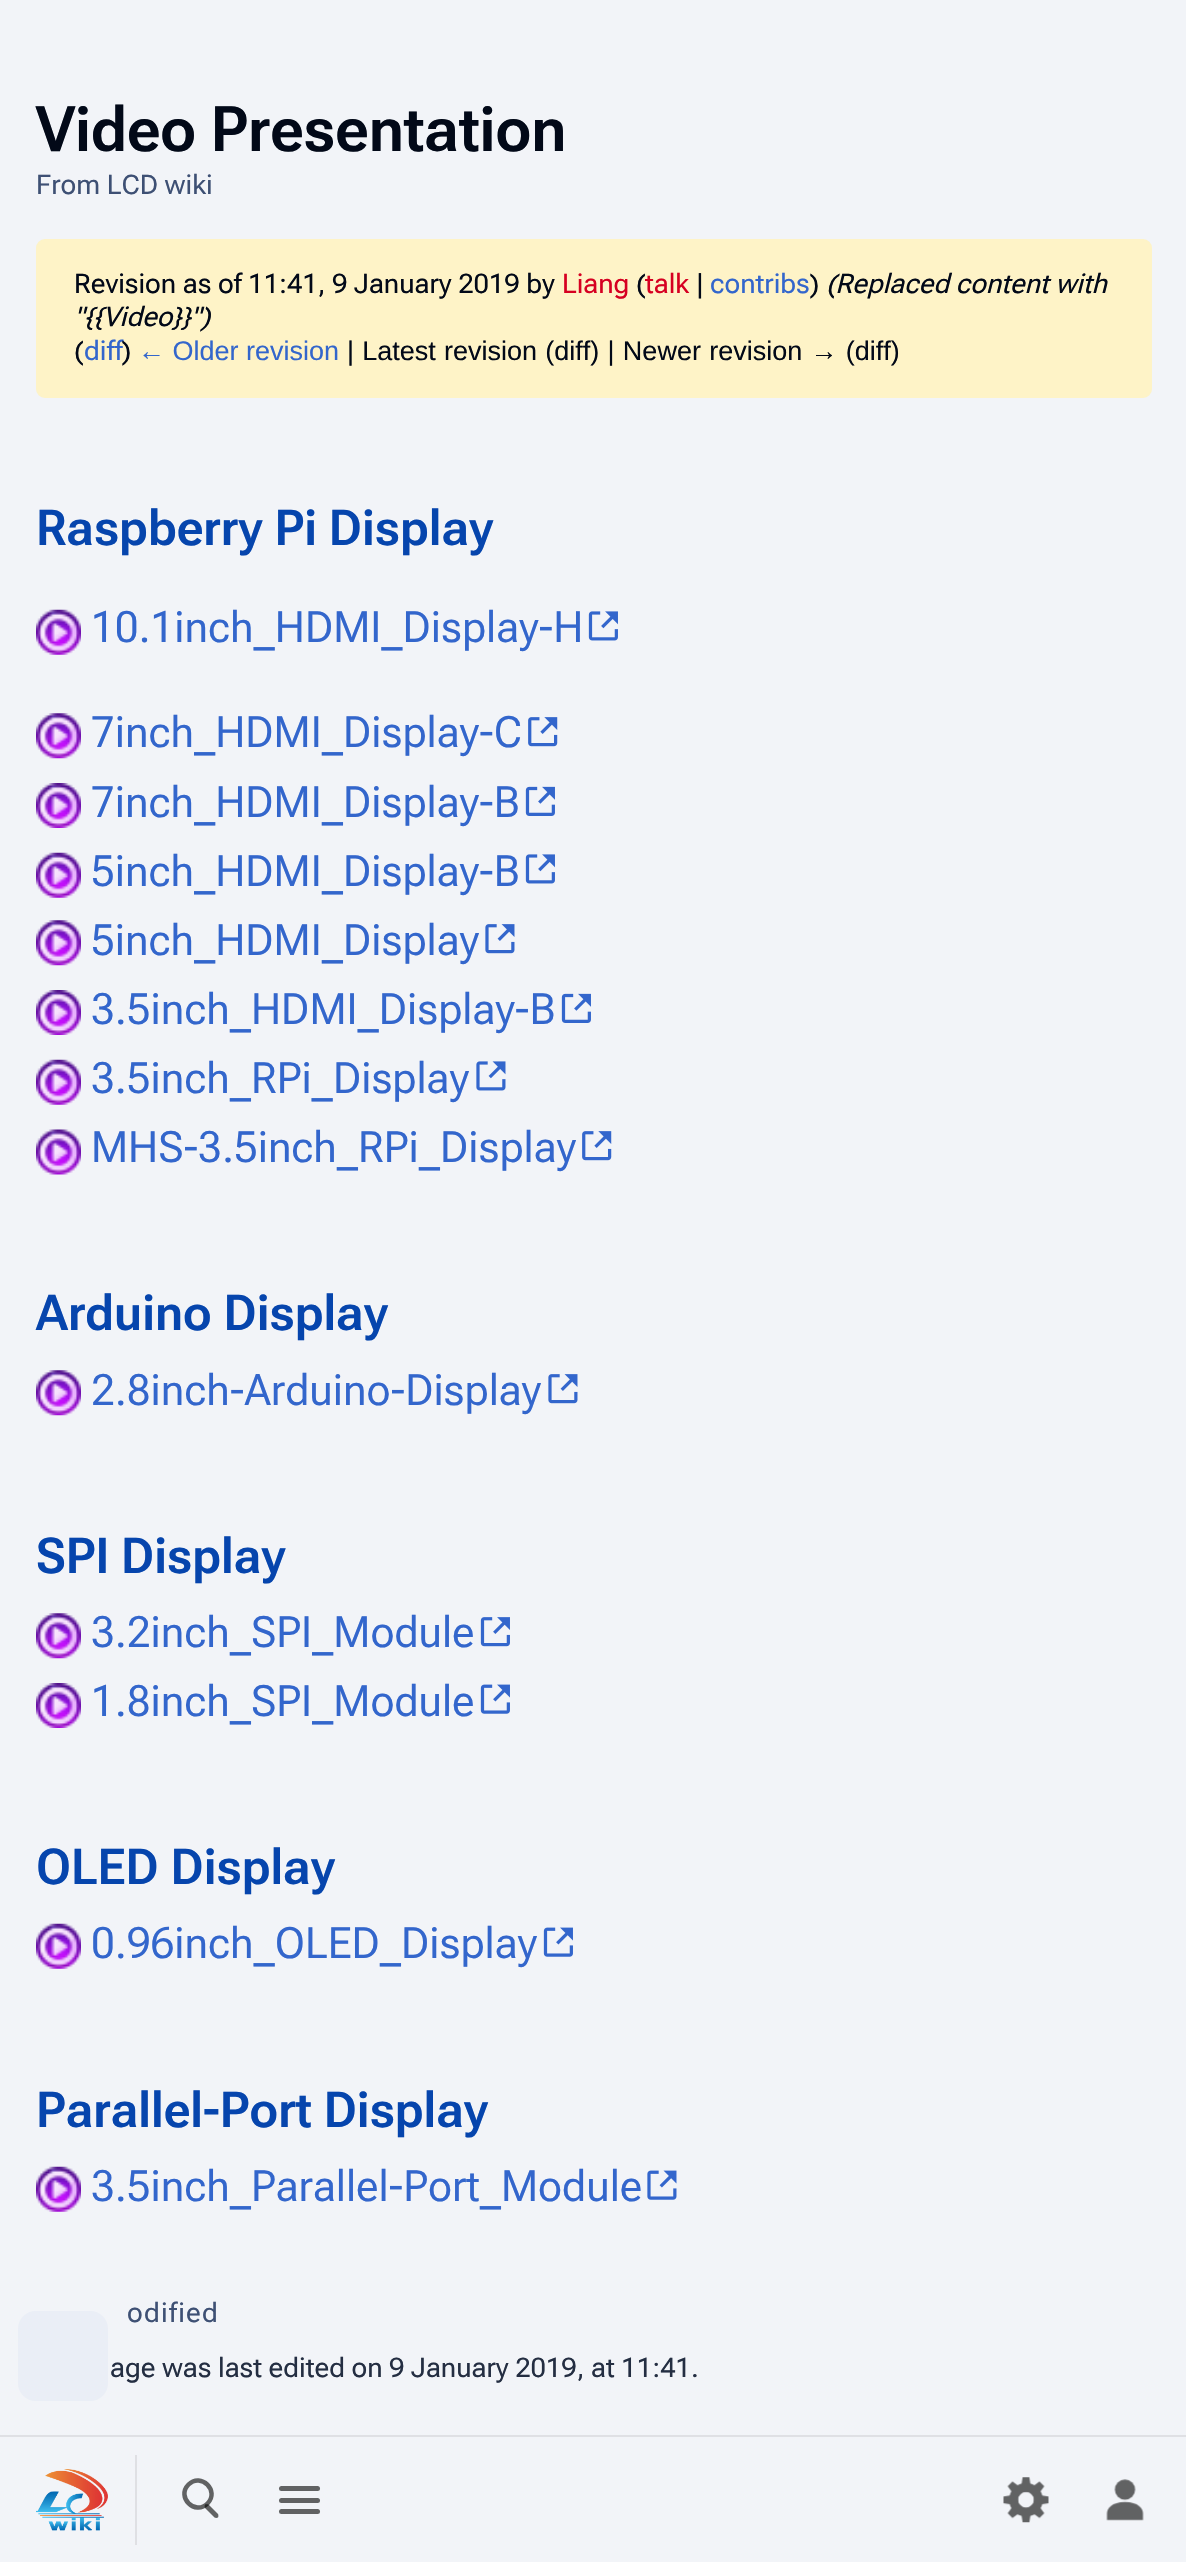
void draw(SkCanvas* canvas) {
	SkPaint paint;
	paint.setAntiAlias(true);
	auto spacedText = [&](const char* s, float x, float y, const SkFont& font, const SkPaint& ink, float letter, float word) {
		std::vector<SkGlyphID> glyphs(font.countText(s, strlen(s), SkTextEncoding::kUTF8));
		std::vector<float> xs(glyphs.size());
		font.textToGlyphs(s, strlen(s), SkTextEncoding::kUTF8, glyphs);
		font.getXPos(glyphs, xs, x);
		float extra = 0;
		for (size_t i = 0; i < glyphs.size(); i++) {
			xs[i] += extra;
			extra += letter + word * (glyphs[i] == font.unicharToGlyph(' '));
		}
		canvas->drawTextBlob(SkTextBlob::MakeFromPosHGlyphs(glyphs, xs, y, font), 0, 0, ink);
	};
	auto svgPath = [&](const char* data, bool evenOdd = false) {
		SkPath result = *SkParsePath::FromSVGString(data);
		if (evenOdd) result.setFillType(SkPathFillType::kEvenOdd);
		return result;
	};
	canvas->clear(0xfff2f4f8);
	SkFont f1(fontMgr->matchFamilyStyle("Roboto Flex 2", SkFontStyle(600, SkFontStyle::kNormal_Width, SkFontStyle::kUpright_Slant)), 63);
	f1.setSubpixel(true);
	paint.setColor(0xff020918);
	canvas->drawString("Video Presentation", 36, 151, f1, paint);
	SkFont f2(fontMgr->matchFamilyStyle("Roboto Flex", SkFontStyle::Normal()), 27);
	f2.setSubpixel(true);
	paint.setColor(0xff3e5074);
	canvas->drawString("From LCD wiki", 36, 194, f2, paint);
	paint.setColor(0xfffef3c7);
	canvas->drawRoundRect(SkRect::MakeXYWH(37, 240, 1114, 157), 8, 8, paint);
	paint.setStroke(true);
	paint.setStrokeWidth(2);
	canvas->drawRoundRect(SkRect::MakeXYWH(37, 240, 1114, 157), 8, 8, paint);
	paint.setStroke(false);
	paint.setColor(0xff020918);
	canvas->drawString("Revision as of 11:41, 9 January 2019 by", 74, 293, f2, paint);
	paint.setColor(0xffd60021);
	canvas->drawString("Liang", 562, 293, f2, paint);
	paint.setColor(0xff020918);
	canvas->drawString("(", 636, 293, f2, paint);
	paint.setColor(0xffd60021);
	canvas->drawString("talk", 645, 293, f2, paint);
	paint.setColor(0xff020918);
	canvas->drawString("|", 696, 293, f2, paint);
	paint.setColor(0xff3366cc);
	canvas->drawString("contribs", 710, 293, f2, paint);
	paint.setColor(0xff020918);
	canvas->drawString(")", 810, 293, f2, paint);
	SkFont f3(fontMgr->matchFamilyStyle("Roboto Flex", SkFontStyle::Italic()), 27);
	f3.setSubpixel(true);
	canvas->drawString("(Replaced content with", 826, 293, f3, paint);
	canvas->drawString("\"{{Video}}\")", 74, 326, f3, paint);
	canvas->drawString("(", 74, 360, f2, paint);
	paint.setColor(0xff3366cc);
	canvas->drawString("diff", 84, 360, f2, paint);
	paint.setColor(0xff020918);
	canvas->drawString(")", 122, 360, f2, paint);
	SkFont f4(fontMgr->matchFamilyStyle("Liberation Sans", SkFontStyle::Normal()), 27);
	f4.setSubpixel(true);
	paint.setColor(0xff3366cc);
	canvas->drawString("← Older revision", 138, 360, f4, paint);
	paint.setColor(0xff020918);
	spacedText("| Latest revision (diff) | Newer revision → (diff)", 347, 360, f4, paint, 0, 0.75);
	SkFont f5(fontMgr->matchFamilyStyle("Roboto Flex", SkFontStyle(600, SkFontStyle::kNormal_Width, SkFontStyle::kUpright_Slant)), 49.5);
	f5.setSubpixel(true);
	paint.setColor(0xff0645ad);
	canvas->drawString("Raspberry Pi Display", 36, 545, f5, paint);
	canvas->drawImageRect(SkImages::DeferredFromEncodedData(SkData::MakeFromFileName("img1.png")), SkRect::MakeXYWH(36, 609, 45, 46), SkSamplingOptions());
	SkFont f6(fontMgr->matchFamilyStyle("Roboto Flex 2", SkFontStyle::Normal()), 43.25);
	f6.setSubpixel(true);
	paint.setColor(0xff3366cc);
	canvas->drawString("10.1inch_HDMI_Display-H", 91, 642, f6, paint);
	canvas->drawImageRect(SkImages::DeferredFromEncodedData(SkData::MakeFromFileName("img2.png")), SkRect::MakeXYWH(588, 611, 30, 30), SkSamplingOptions());
	canvas->drawImageRect(SkImages::DeferredFromEncodedData(SkData::MakeFromFileName("img3.png")), SkRect::MakeXYWH(36, 713, 45, 46), SkSamplingOptions());
	canvas->drawString("7inch_HDMI_Display-C", 91, 747, f6, paint);
	canvas->drawImageRect(SkImages::DeferredFromEncodedData(SkData::MakeFromFileName("img4.png")), SkRect::MakeXYWH(528, 717, 30, 30), SkSamplingOptions());
	canvas->drawImageRect(SkImages::DeferredFromEncodedData(SkData::MakeFromFileName("img5.png")), SkRect::MakeXYWH(36, 783, 45, 45), SkSamplingOptions());
	canvas->drawString("7inch_HDMI_Display-B", 91, 817, f6, paint);
	canvas->drawImageRect(SkImages::DeferredFromEncodedData(SkData::MakeFromFileName("img6.png")), SkRect::MakeXYWH(525, 786, 30, 30), SkSamplingOptions());
	canvas->drawImageRect(SkImages::DeferredFromEncodedData(SkData::MakeFromFileName("img1.png")), SkRect::MakeXYWH(36, 852, 45, 46), SkSamplingOptions());
	canvas->drawString("5inch_HDMI_Display-B", 91, 886, f6, paint);
	canvas->drawImageRect(SkImages::DeferredFromEncodedData(SkData::MakeFromFileName("img2.png")), SkRect::MakeXYWH(525, 854, 30, 30), SkSamplingOptions());
	canvas->drawImageRect(SkImages::DeferredFromEncodedData(SkData::MakeFromFileName("img3.png")), SkRect::MakeXYWH(36, 920, 45, 46), SkSamplingOptions());
	canvas->drawString("5inch_HDMI_Display", 91, 955, f6, paint);
	canvas->drawImageRect(SkImages::DeferredFromEncodedData(SkData::MakeFromFileName("img7.png")), SkRect::MakeXYWH(485, 924, 30, 30), SkSamplingOptions());
	canvas->drawImageRect(SkImages::DeferredFromEncodedData(SkData::MakeFromFileName("img5.png")), SkRect::MakeXYWH(36, 990, 45, 45), SkSamplingOptions());
	canvas->drawString("3.5inch_HDMI_Display-B", 91, 1024, f6, paint);
	canvas->drawImageRect(SkImages::DeferredFromEncodedData(SkData::MakeFromFileName("img6.png")), SkRect::MakeXYWH(561, 993, 30, 30), SkSamplingOptions());
	canvas->drawImageRect(SkImages::DeferredFromEncodedData(SkData::MakeFromFileName("img1.png")), SkRect::MakeXYWH(36, 1059, 45, 46), SkSamplingOptions());
	canvas->drawString("3.5inch_RPi_Display", 91, 1093, f6, paint);
	canvas->drawImageRect(SkImages::DeferredFromEncodedData(SkData::MakeFromFileName("img8.png")), SkRect::MakeXYWH(476, 1061, 30, 30), SkSamplingOptions());
	canvas->drawImageRect(SkImages::DeferredFromEncodedData(SkData::MakeFromFileName("img9.png")), SkRect::MakeXYWH(36, 1129, 45, 46), SkSamplingOptions());
	canvas->drawString("MHS-3.5inch_RPi_Display", 91, 1162, f6, paint);
	canvas->drawImageRect(SkImages::DeferredFromEncodedData(SkData::MakeFromFileName("img4.png")), SkRect::MakeXYWH(582, 1131, 30, 30), SkSamplingOptions());
	paint.setColor(0xff0645ad);
	canvas->drawString("Arduino Display", 36, 1330, f5, paint);
	canvas->drawImageRect(SkImages::DeferredFromEncodedData(SkData::MakeFromFileName("img3.png")), SkRect::MakeXYWH(36, 1370, 45, 46), SkSamplingOptions());
	paint.setColor(0xff3366cc);
	canvas->drawString("2.8inch-Arduino-Display", 91, 1405, f6, paint);
	canvas->drawImageRect(SkImages::DeferredFromEncodedData(SkData::MakeFromFileName("img7.png")), SkRect::MakeXYWH(548, 1374, 30, 30), SkSamplingOptions());
	paint.setColor(0xff0645ad);
	canvas->drawString("SPI Display", 36, 1573, f5, paint);
	canvas->drawImageRect(SkImages::DeferredFromEncodedData(SkData::MakeFromFileName("img3.png")), SkRect::MakeXYWH(36, 1613, 45, 46), SkSamplingOptions());
	paint.setColor(0xff3366cc);
	canvas->drawString("3.2inch_SPI_Module", 91, 1647, f6, paint);
	canvas->drawImageRect(SkImages::DeferredFromEncodedData(SkData::MakeFromFileName("img10.png")), SkRect::MakeXYWH(480, 1617, 30, 30), SkSamplingOptions());
	canvas->drawImageRect(SkImages::DeferredFromEncodedData(SkData::MakeFromFileName("img5.png")), SkRect::MakeXYWH(36, 1683, 45, 45), SkSamplingOptions());
	canvas->drawString("1.8inch_SPI_Module", 91, 1716, f6, paint);
	canvas->drawImageRect(SkImages::DeferredFromEncodedData(SkData::MakeFromFileName("img11.png")), SkRect::MakeXYWH(480, 1684, 30, 30), SkSamplingOptions());
	paint.setColor(0xff0645ad);
	canvas->drawString("OLED Display", 36, 1884, f5, paint);
	canvas->drawImageRect(SkImages::DeferredFromEncodedData(SkData::MakeFromFileName("img1.png")), SkRect::MakeXYWH(36, 1923, 45, 46), SkSamplingOptions());
	paint.setColor(0xff3366cc);
	canvas->drawString("0.96inch_OLED_Display", 91, 1958, f6, paint);
	canvas->drawImageRect(SkImages::DeferredFromEncodedData(SkData::MakeFromFileName("img11.png")), SkRect::MakeXYWH(543, 1927, 30, 30), SkSamplingOptions());
	paint.setColor(0xff0645ad);
	canvas->drawString("Parallel-Port Display", 36, 2127, f5, paint);
	canvas->drawImageRect(SkImages::DeferredFromEncodedData(SkData::MakeFromFileName("img1.png")), SkRect::MakeXYWH(36, 2166, 45, 46), SkSamplingOptions());
	paint.setColor(0xff3366cc);
	canvas->drawString("3.5inch_Parallel-Port_Module", 91, 2201, f6, paint);
	canvas->drawImageRect(SkImages::DeferredFromEncodedData(SkData::MakeFromFileName("img12.png")), SkRect::MakeXYWH(647, 2170, 30, 30), SkSamplingOptions());
	paint.setColor(0xffeaeef6);
	canvas->drawRoundRect(SkRect::MakeXYWH(18, 2311, 90, 90), 18, 18, paint);
	paint.setColor(0xff3e5074);
	spacedText("odified", 127, 2322, f2, paint, 1.25, 0);
	paint.setColor(0xff242e42);
	canvas->drawString("age was last edited on 9 January 2019, at 11:41.", 110, 2377, f2, paint);
	paint.setColor(0xffdfe0e4);
	canvas->drawRect(SkRect::MakeXYWH(0, 2435, 1186, 2), paint);
	canvas->drawRect(SkRect::MakeXYWH(135, 2455, 2, 90), paint);
	canvas->drawImageRect(SkImages::DeferredFromEncodedData(SkData::MakeFromFileName("img13.png")), SkRect::MakeXYWH(36, 2469, 72, 62), SkSamplingOptions());
	paint.setColor(0xff616263);
	canvas->drawPath(svgPath("M205 2504.5C206 2504 207.5 2504 208.5 2504.5L218 2514C218.5 2515 218.5 2516.5 218 2517.5C217 2518 215.5 2518 214.5 2517.5L205 2508C204.5 2507 204.5 2505.5 205 2504.5Z"), paint);
	paint.setStroke(true);
	paint.setStrokeWidth(4.5);
	paint.setColor(0x99000000);
	canvas->drawPath(svgPath("M188.5 2484.5C201 2472 220 2491 207.5 2503.5C195 2516 176 2497 188.5 2484.5Z"), paint);
	paint.setStroke(false);
	paint.setColor(0xff616263);
	canvas->drawRoundRect(SkRect::MakeXYWH(279, 2486, 41, 5), 2.5, 2.5, paint);
	canvas->drawRoundRect(SkRect::MakeXYWH(279, 2498, 41, 5), 2.5, 2.5, paint);
	canvas->drawRoundRect(SkRect::MakeXYWH(279, 2509, 41, 5), 2.5, 2.5, paint);
	canvas->drawImageRect(SkImages::DeferredFromEncodedData(SkData::MakeFromFileName("img14.png")), SkRect::MakeXYWH(1003, 2477, 46, 46), SkSamplingOptions());
	canvas->drawImageRect(SkImages::DeferredFromEncodedData(SkData::MakeFromFileName("img15.png")), SkRect::MakeXYWH(1106, 2479, 38, 42), SkSamplingOptions());
}
